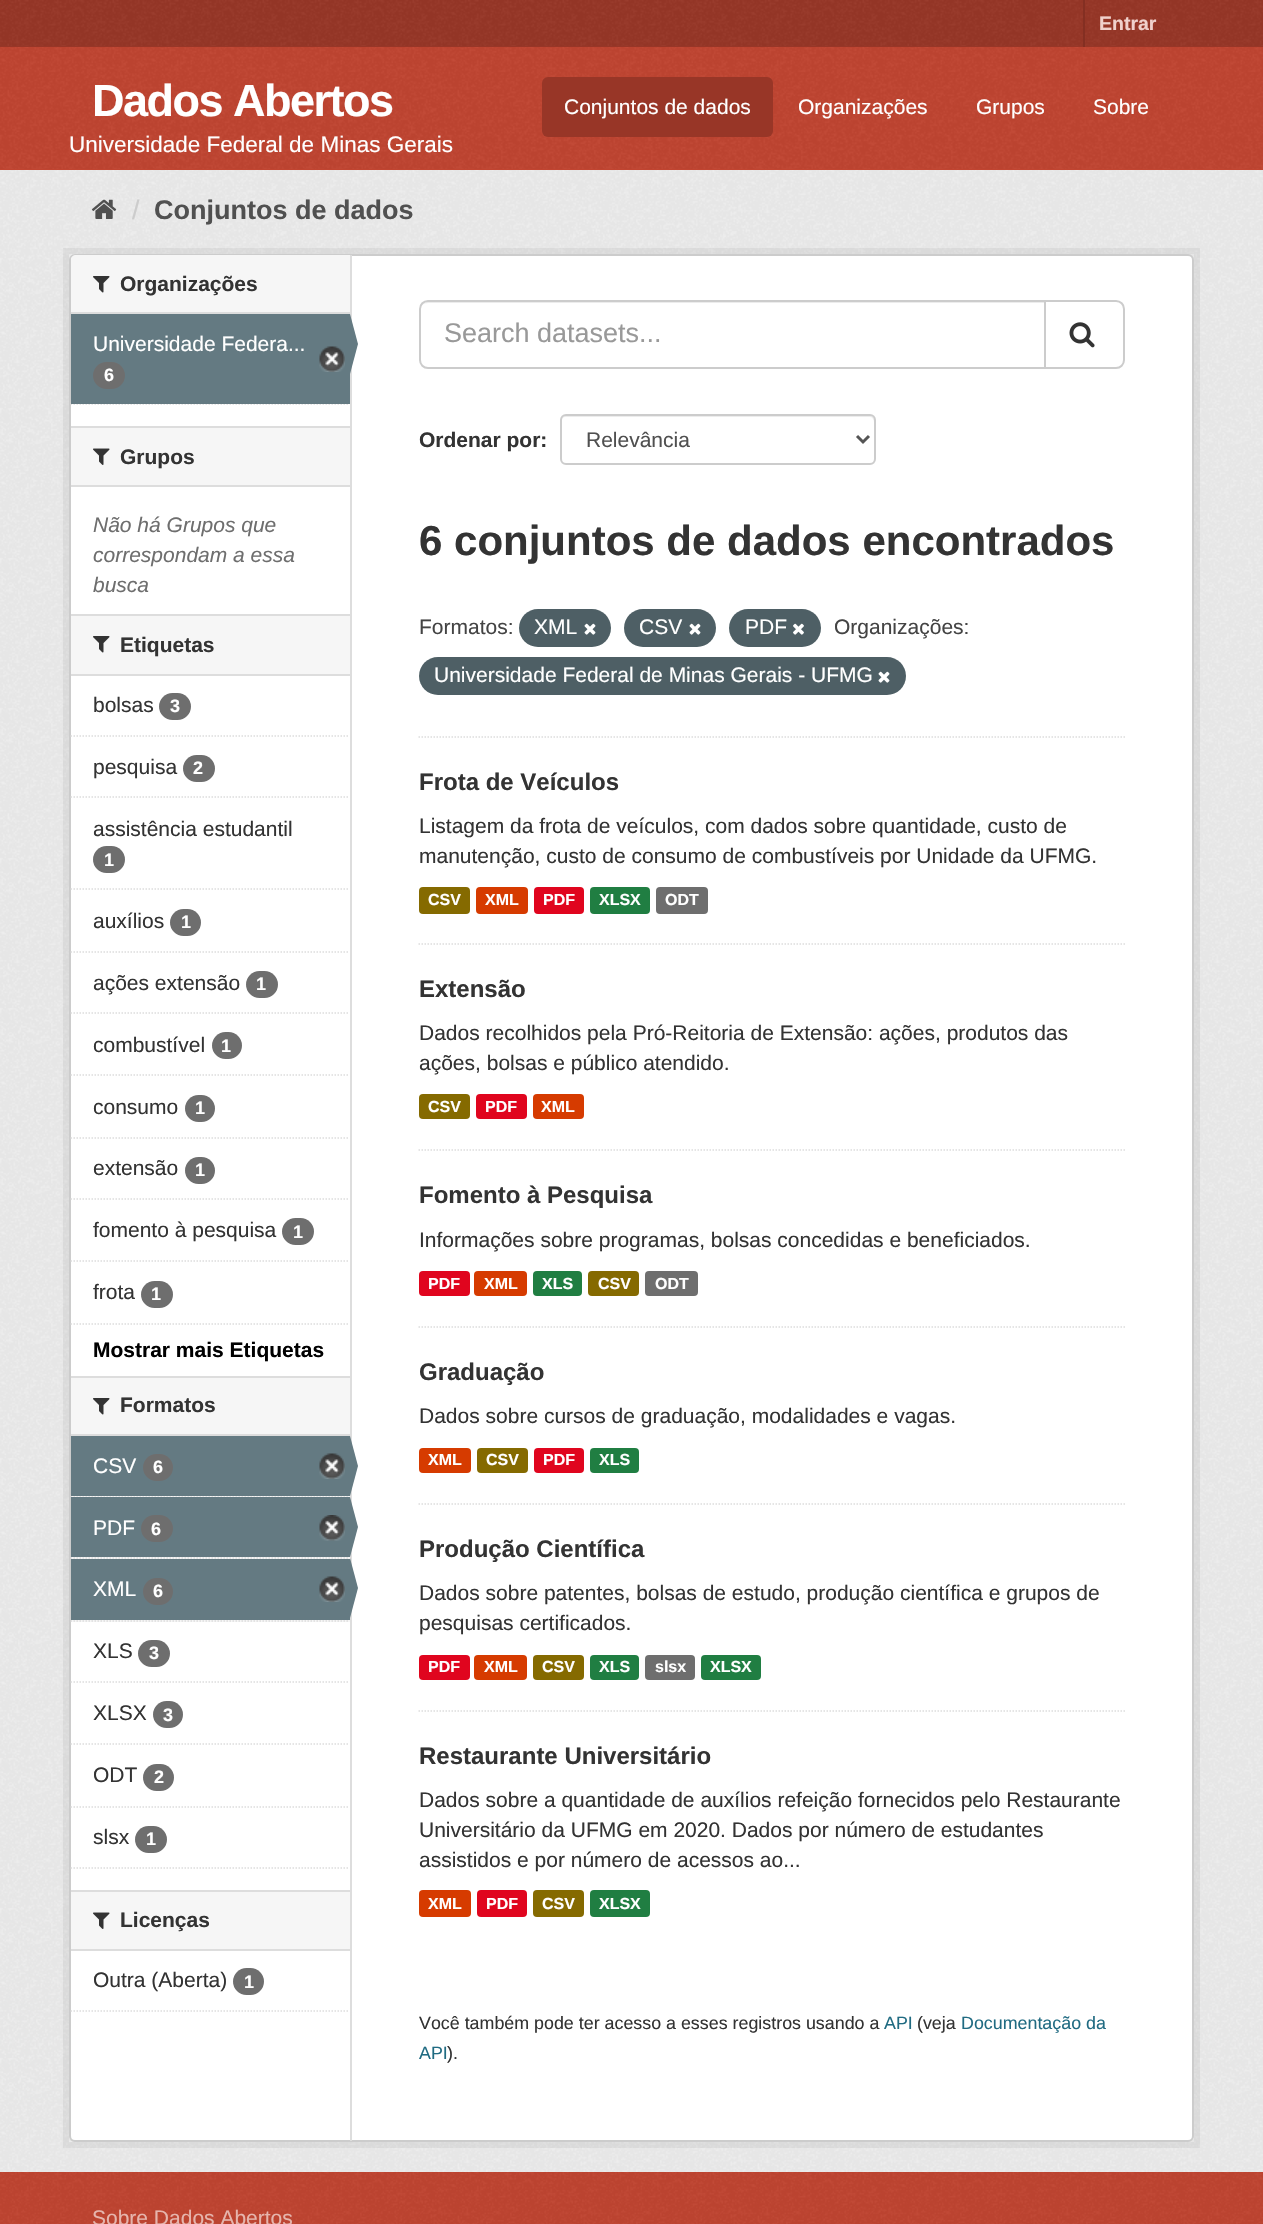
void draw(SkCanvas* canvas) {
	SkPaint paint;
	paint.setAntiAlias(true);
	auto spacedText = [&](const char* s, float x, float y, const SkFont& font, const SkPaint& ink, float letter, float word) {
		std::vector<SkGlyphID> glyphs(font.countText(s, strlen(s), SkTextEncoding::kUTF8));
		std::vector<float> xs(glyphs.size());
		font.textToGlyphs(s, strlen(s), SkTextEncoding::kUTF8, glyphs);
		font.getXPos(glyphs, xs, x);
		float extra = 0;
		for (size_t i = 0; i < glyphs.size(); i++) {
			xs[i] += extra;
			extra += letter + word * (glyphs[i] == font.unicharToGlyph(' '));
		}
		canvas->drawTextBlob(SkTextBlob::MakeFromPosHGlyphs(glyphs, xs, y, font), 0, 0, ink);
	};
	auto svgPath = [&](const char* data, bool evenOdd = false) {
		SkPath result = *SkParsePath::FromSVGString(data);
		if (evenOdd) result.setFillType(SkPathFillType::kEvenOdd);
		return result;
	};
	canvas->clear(0xff983627);
	canvas->drawImageRect(SkImages::DeferredFromEncodedData(SkData::MakeFromFileName("img1.png")), SkRect::MakeXYWH(0, 0, 1263, 46), SkSamplingOptions());
	paint.setColor(0xff842f22);
	canvas->drawRect(SkRect::MakeXYWH(1083, 0, 2, 47), paint);
	SkFont f1(fontMgr->matchFamilyStyle("Liberation Sans", SkFontStyle::Bold()), 19.5);
	f1.setSubpixel(true);
	paint.setColor(0xfff0d1cc);
	canvas->drawString("Entrar", 1099, 30, f1, paint);
	paint.setColor(0xffc14531);
	canvas->drawRect(SkRect::MakeXYWH(0, 47, 1263, 123), paint);
	canvas->drawImageRect(SkImages::DeferredFromEncodedData(SkData::MakeFromFileName("img2.png")), SkRect::MakeXYWH(0, 47, 1263, 122), SkSamplingOptions());
	SkFont f2(fontMgr->matchFamilyStyle("Liberation Sans", SkFontStyle::Bold()), 45);
	f2.setSubpixel(true);
	paint.setColor(0xffffffff);
	spacedText("Dados Abertos", 92, 116, f2, paint, -1.5, 0);
	SkFont f3(fontMgr->matchFamilyStyle("Liberation Sans", SkFontStyle::Normal()), 22.5);
	f3.setSubpixel(true);
	canvas->drawString("Universidade Federal de Minas Gerais", 69, 152, f3, paint);
	paint.setColor(0xff983627);
	canvas->drawRoundRect(SkRect::MakeXYWH(542, 77, 231, 60), 6, 6, paint);
	SkFont f4(fontMgr->matchFamilyStyle("Liberation Sans", SkFontStyle::Normal()), 21);
	f4.setSubpixel(true);
	paint.setColor(0xffffffff);
	canvas->drawString("Conjuntos de dados", 564, 114, f4, paint);
	canvas->drawString("Organizações", 798, 114, f4, paint);
	canvas->drawString("Grupos", 976, 114, f4, paint);
	canvas->drawString("Sobre", 1093, 114, f4, paint);
	paint.setColor(0xffeeeeee);
	canvas->drawRect(SkRect::MakeXYWH(0, 170, 1263, 2002), paint);
	canvas->drawImageRect(SkImages::DeferredFromEncodedData(SkData::MakeFromFileName("img3.png")), SkRect::MakeXYWH(0, 170, 1263, 2002), SkSamplingOptions());
	canvas->drawImageRect(SkImages::DeferredFromEncodedData(SkData::MakeFromFileName("img4.png")), SkRect::MakeXYWH(91, 199, 26, 20), SkSamplingOptions());
	SkFont f5(fontMgr->matchFamilyStyle("Liberation Sans", SkFontStyle::Normal()), 27);
	f5.setSubpixel(true);
	paint.setColor(0xffcccccc);
	canvas->drawString("/", 132, 219, f5, paint);
	SkFont f6(fontMgr->matchFamilyStyle("Liberation Sans", SkFontStyle::Bold()), 27);
	f6.setSubpixel(true);
	paint.setColor(0xff505050);
	canvas->drawString("Conjuntos de dados", 154, 219, f6, paint);
	paint.setStroke(true);
	paint.setStrokeWidth(6);
	paint.setColor(0x0d000000);
	canvas->drawRect(SkRect::MakeXYWH(66, 251, 1131, 1894), paint);
	paint.setStroke(false);
	paint.setColor(0xffffffff);
	canvas->drawRoundRect(SkRect::MakeXYWH(70, 255, 1123, 1886), 5, 5, paint);
	paint.setStroke(true);
	paint.setStrokeWidth(2);
	paint.setColor(0xffcccccc);
	canvas->drawRoundRect(SkRect::MakeXYWH(70, 255, 1123, 1886), 5, 5, paint);
	paint.setStroke(false);
	paint.setColor(0xfff6f6f6);
	canvas->drawPath(svgPath("M76 255H350V314H71V260C71 257 73 255 76 255Z"), paint);
	paint.setColor(0xffdddddd);
	canvas->drawRect(SkRect::MakeXYWH(71, 312, 279, 2), paint);
	canvas->drawImageRect(SkImages::DeferredFromEncodedData(SkData::MakeFromFileName("img5.png")), SkRect::MakeXYWH(93, 276, 17, 17), SkSamplingOptions());
	SkFont f7(fontMgr->matchFamilyStyle("Liberation Sans", SkFontStyle::Bold()), 21);
	f7.setSubpixel(true);
	paint.setColor(0xff333333);
	canvas->drawString("Organizações", 120, 291, f7, paint);
	paint.setStroke(true);
	paint.setStrokeWidth(1.5);
	paint.setColor(0xffdddddd);
	paint.setPathEffect(SkDashPathEffect::Make({{1.5f, 1.5f}}, 0));
	canvas->drawPath(svgPath("M70.5 404H349.5"), paint);
	paint.setPathEffect(nullptr);
	paint.setStroke(false);
	paint.setColor(0xff647a82);
	canvas->drawRect(SkRect::MakeXYWH(71, 314, 279, 90), paint);
	paint.setColor(0xffffffff);
	canvas->drawString("Universidade Federa...", 93, 351, f4, paint);
	paint.setColor(0xffdddddd);
	canvas->drawRect(SkRect::MakeXYWH(350, 255, 2, 1886), paint);
	paint.setColor(0xff647a82);
	canvas->drawPath(svgPath("M350 374V314L358 344Z"), paint);
	canvas->drawImageRect(SkImages::DeferredFromEncodedData(SkData::MakeFromFileName("img6.png")), SkRect::MakeXYWH(319, 346, 26, 26), SkSamplingOptions());
	paint.setColor(0xff6e6e6e);
	canvas->drawRoundRect(SkRect::MakeXYWH(93, 362, 32, 27), 13.5, 13.5, paint);
	SkFont f8(fontMgr->matchFamilyStyle("Liberation Sans", SkFontStyle::Bold()), 18);
	f8.setSubpixel(true);
	paint.setColor(0xffffffff);
	canvas->drawString("6", 104, 381, f8, paint);
	paint.setColor(0xfff6f6f6);
	canvas->drawRect(SkRect::MakeXYWH(71, 428, 279, 57), paint);
	paint.setColor(0xffdddddd);
	canvas->drawRect(SkRect::MakeXYWH(71, 426, 279, 2), paint);
	canvas->drawRect(SkRect::MakeXYWH(71, 485, 279, 2), paint);
	canvas->drawImageRect(SkImages::DeferredFromEncodedData(SkData::MakeFromFileName("img7.png")), SkRect::MakeXYWH(93, 448, 17, 17), SkSamplingOptions());
	paint.setColor(0xff333333);
	canvas->drawString("Grupos", 120, 464, f7, paint);
	SkFont f9(fontMgr->matchFamilyStyle("Liberation Sans", SkFontStyle::Italic()), 21);
	f9.setSubpixel(true);
	paint.setColor(0xff6e6e6e);
	canvas->drawString("Não há Grupos que", 93, 532, f9, paint);
	canvas->drawString("correspondam a essa", 93, 562, f9, paint);
	canvas->drawString("busca", 93, 592, f9, paint);
	paint.setColor(0xfff6f6f6);
	canvas->drawRect(SkRect::MakeXYWH(71, 616, 279, 58), paint);
	paint.setColor(0xffdddddd);
	canvas->drawRect(SkRect::MakeXYWH(71, 614, 279, 2), paint);
	canvas->drawRect(SkRect::MakeXYWH(71, 674, 279, 2), paint);
	canvas->drawImageRect(SkImages::DeferredFromEncodedData(SkData::MakeFromFileName("img5.png")), SkRect::MakeXYWH(93, 636, 17, 17), SkSamplingOptions());
	paint.setColor(0xff333333);
	canvas->drawString("Etiquetas", 120, 652, f7, paint);
	paint.setStroke(true);
	paint.setColor(0xffdddddd);
	paint.setPathEffect(SkDashPathEffect::Make({{1.5f, 1.5f}}, 0));
	canvas->drawPath(svgPath("M70.5 736H349.5"), paint);
	paint.setPathEffect(nullptr);
	paint.setStroke(false);
	paint.setColor(0xff333333);
	canvas->drawString("bolsas", 93, 712, f4, paint);
	paint.setColor(0xff6e6e6e);
	canvas->drawRoundRect(SkRect::MakeXYWH(159, 693, 32, 27), 13.5, 13.5, paint);
	paint.setColor(0xffffffff);
	canvas->drawString("3", 170, 712, f8, paint);
	paint.setStroke(true);
	paint.setColor(0xffdddddd);
	paint.setPathEffect(SkDashPathEffect::Make({{1.5f, 1.5f}}, 0));
	canvas->drawPath(svgPath("M70.5 797H349.5"), paint);
	paint.setPathEffect(nullptr);
	paint.setStroke(false);
	paint.setColor(0xff333333);
	canvas->drawString("pesquisa", 93, 774, f4, paint);
	paint.setColor(0xff6e6e6e);
	canvas->drawRoundRect(SkRect::MakeXYWH(183, 755, 32, 27), 13.5, 13.5, paint);
	paint.setColor(0xffffffff);
	canvas->drawString("2", 193, 774, f8, paint);
	paint.setStroke(true);
	paint.setColor(0xffdddddd);
	paint.setPathEffect(SkDashPathEffect::Make({{1.5f, 1.5f}}, 0));
	canvas->drawPath(svgPath("M70.5 889H349.5"), paint);
	paint.setPathEffect(nullptr);
	paint.setStroke(false);
	paint.setColor(0xff333333);
	canvas->drawString("assistência estudantil", 93, 836, f4, paint);
	paint.setColor(0xff6e6e6e);
	canvas->drawRoundRect(SkRect::MakeXYWH(93, 846, 32, 27), 13.5, 13.5, paint);
	paint.setColor(0xffffffff);
	canvas->drawString("1", 104, 866, f8, paint);
	paint.setStroke(true);
	paint.setColor(0xffdddddd);
	paint.setPathEffect(SkDashPathEffect::Make({{1.5f, 1.5f}}, 0));
	canvas->drawPath(svgPath("M70.5 952H349.5"), paint);
	paint.setPathEffect(nullptr);
	paint.setStroke(false);
	paint.setColor(0xff333333);
	canvas->drawString("auxílios", 93, 928, f4, paint);
	paint.setColor(0xff6e6e6e);
	canvas->drawRoundRect(SkRect::MakeXYWH(170, 909, 31, 27), 13.5, 13.5, paint);
	paint.setColor(0xffffffff);
	canvas->drawString("1", 181, 928, f8, paint);
	paint.setStroke(true);
	paint.setColor(0xffdddddd);
	paint.setPathEffect(SkDashPathEffect::Make({{1.5f, 1.5f}}, 0));
	canvas->drawPath(svgPath("M70.5 1013H349.5"), paint);
	paint.setPathEffect(nullptr);
	paint.setStroke(false);
	paint.setColor(0xff333333);
	canvas->drawString("ações extensão", 93, 990, f4, paint);
	paint.setColor(0xff6e6e6e);
	canvas->drawRoundRect(SkRect::MakeXYWH(246, 971, 32, 27), 13.5, 13.5, paint);
	paint.setColor(0xffffffff);
	canvas->drawString("1", 256, 990, f8, paint);
	paint.setStroke(true);
	paint.setColor(0xffdddddd);
	paint.setPathEffect(SkDashPathEffect::Make({{1.5f, 1.5f}}, 0));
	canvas->drawPath(svgPath("M70.5 1075H349.5"), paint);
	paint.setPathEffect(nullptr);
	paint.setStroke(false);
	paint.setColor(0xff333333);
	canvas->drawString("combustível", 93, 1052, f4, paint);
	paint.setColor(0xff6e6e6e);
	canvas->drawRoundRect(SkRect::MakeXYWH(212, 1032, 30, 27), 13.5, 13.5, paint);
	paint.setColor(0xffffffff);
	canvas->drawString("1", 221, 1052, f8, paint);
	paint.setStroke(true);
	paint.setColor(0xffdddddd);
	paint.setPathEffect(SkDashPathEffect::Make({{1.5f, 1.5f}}, 0));
	canvas->drawPath(svgPath("M70.5 1138H349.5"), paint);
	paint.setPathEffect(nullptr);
	paint.setStroke(false);
	paint.setColor(0xff333333);
	canvas->drawString("consumo", 93, 1114, f4, paint);
	paint.setColor(0xff6e6e6e);
	canvas->drawRoundRect(SkRect::MakeXYWH(185, 1095, 30, 27), 13.5, 13.5, paint);
	paint.setColor(0xffffffff);
	canvas->drawString("1", 195, 1114, f8, paint);
	paint.setStroke(true);
	paint.setColor(0xffdddddd);
	paint.setPathEffect(SkDashPathEffect::Make({{1.5f, 1.5f}}, 0));
	canvas->drawPath(svgPath("M70.5 1199H349.5"), paint);
	paint.setPathEffect(nullptr);
	paint.setStroke(false);
	paint.setColor(0xff333333);
	canvas->drawString("extensão", 93, 1175, f4, paint);
	paint.setColor(0xff6e6e6e);
	canvas->drawRoundRect(SkRect::MakeXYWH(185, 1157, 30, 27), 13.5, 13.5, paint);
	paint.setColor(0xffffffff);
	canvas->drawString("1", 195, 1176, f8, paint);
	paint.setStroke(true);
	paint.setColor(0xffdddddd);
	paint.setPathEffect(SkDashPathEffect::Make({{1.5f, 1.5f}}, 0));
	canvas->drawPath(svgPath("M70.5 1261H349.5"), paint);
	paint.setPathEffect(nullptr);
	paint.setStroke(false);
	paint.setColor(0xff333333);
	canvas->drawString("fomento à pesquisa", 93, 1237, f4, paint);
	paint.setColor(0xff6e6e6e);
	canvas->drawRoundRect(SkRect::MakeXYWH(282, 1218, 32, 27), 13.5, 13.5, paint);
	paint.setColor(0xffffffff);
	canvas->drawString("1", 293, 1238, f8, paint);
	paint.setColor(0xff333333);
	canvas->drawString("frota", 93, 1299, f4, paint);
	paint.setColor(0xff6e6e6e);
	canvas->drawRoundRect(SkRect::MakeXYWH(141, 1281, 32, 27), 13.5, 13.5, paint);
	paint.setColor(0xffffffff);
	canvas->drawString("1", 151, 1300, f8, paint);
	paint.setStroke(true);
	paint.setColor(0xffdddddd);
	paint.setPathEffect(SkDashPathEffect::Make({{1.5f, 1.5f}}, 0));
	canvas->drawPath(svgPath("M70.5 1324H349.5"), paint);
	paint.setPathEffect(nullptr);
	paint.setStroke(false);
	paint.setColor(0xff000000);
	canvas->drawString("Mostrar mais Etiquetas", 93, 1357, f7, paint);
	paint.setColor(0xfff6f6f6);
	canvas->drawRect(SkRect::MakeXYWH(71, 1378, 279, 56), paint);
	paint.setColor(0xffdddddd);
	canvas->drawRect(SkRect::MakeXYWH(71, 1376, 279, 2), paint);
	canvas->drawRect(SkRect::MakeXYWH(71, 1434, 279, 2), paint);
	canvas->drawImageRect(SkImages::DeferredFromEncodedData(SkData::MakeFromFileName("img5.png")), SkRect::MakeXYWH(93, 1398, 17, 17), SkSamplingOptions());
	paint.setColor(0xff333333);
	canvas->drawString("Formatos", 120, 1412, f7, paint);
	paint.setColor(0xfff6f6f6);
	canvas->drawRect(SkRect::MakeXYWH(71, 1496, 279, 1), paint);
	paint.setStroke(true);
	paint.setColor(0xffdddddd);
	paint.setPathEffect(SkDashPathEffect::Make({{1.5f, 1.5f}}, 0));
	canvas->drawPath(svgPath("M70.5 1496H349.5"), paint);
	paint.setPathEffect(nullptr);
	paint.setStroke(false);
	paint.setColor(0xff647a82);
	canvas->drawRect(SkRect::MakeXYWH(71, 1436, 279, 60), paint);
	paint.setColor(0xffffffff);
	canvas->drawString("CSV", 93, 1473, f4, paint);
	paint.setColor(0xff6e6e6e);
	canvas->drawRoundRect(SkRect::MakeXYWH(143, 1454, 30, 27), 13.5, 13.5, paint);
	paint.setColor(0xffffffff);
	canvas->drawString("6", 153, 1473, f8, paint);
	canvas->drawImageRect(SkImages::DeferredFromEncodedData(SkData::MakeFromFileName("img6.png")), SkRect::MakeXYWH(319, 1453, 26, 26), SkSamplingOptions());
	paint.setColor(0xff647a82);
	canvas->drawPath(svgPath("M350 1496V1436L358 1466Z"), paint);
	paint.setColor(0xfff6f6f6);
	canvas->drawRect(SkRect::MakeXYWH(71, 1557, 279, 2), paint);
	paint.setStroke(true);
	paint.setColor(0xffdddddd);
	paint.setPathEffect(SkDashPathEffect::Make({{1.5f, 1.5f}}, 0));
	canvas->drawPath(svgPath("M70.5 1558H349.5"), paint);
	paint.setPathEffect(nullptr);
	paint.setStroke(false);
	paint.setColor(0xff647a82);
	canvas->drawRect(SkRect::MakeXYWH(71, 1497, 279, 60), paint);
	paint.setColor(0xffffffff);
	canvas->drawString("PDF", 93, 1535, f4, paint);
	paint.setColor(0xff6e6e6e);
	canvas->drawRoundRect(SkRect::MakeXYWH(141, 1515, 32, 27), 13.5, 13.5, paint);
	paint.setColor(0xffffffff);
	canvas->drawString("6", 151, 1535, f8, paint);
	canvas->drawImageRect(SkImages::DeferredFromEncodedData(SkData::MakeFromFileName("img8.png")), SkRect::MakeXYWH(319, 1515, 26, 26), SkSamplingOptions());
	paint.setColor(0xff647a82);
	canvas->drawPath(svgPath("M350 1557V1497L358 1527Z"), paint);
	paint.setColor(0xfff6f6f6);
	canvas->drawRect(SkRect::MakeXYWH(71, 1620, 279, 2), paint);
	paint.setStroke(true);
	paint.setColor(0xffdddddd);
	paint.setPathEffect(SkDashPathEffect::Make({{1.5f, 1.5f}}, 0));
	canvas->drawPath(svgPath("M70.5 1621H349.5"), paint);
	paint.setPathEffect(nullptr);
	paint.setStroke(false);
	paint.setColor(0xff647a82);
	canvas->drawRect(SkRect::MakeXYWH(71, 1559, 279, 61), paint);
	paint.setColor(0xffffffff);
	canvas->drawString("XML", 93, 1596, f4, paint);
	paint.setColor(0xff6e6e6e);
	canvas->drawRoundRect(SkRect::MakeXYWH(143, 1578, 30, 27), 13.5, 13.5, paint);
	paint.setColor(0xffffffff);
	canvas->drawString("6", 153, 1597, f8, paint);
	canvas->drawImageRect(SkImages::DeferredFromEncodedData(SkData::MakeFromFileName("img6.png")), SkRect::MakeXYWH(319, 1576, 26, 26), SkSamplingOptions());
	paint.setColor(0xff647a82);
	canvas->drawPath(svgPath("M350 1618V1558L358 1588Z"), paint);
	paint.setStroke(true);
	paint.setColor(0xffdddddd);
	paint.setPathEffect(SkDashPathEffect::Make({{1.5f, 1.5f}}, 0));
	canvas->drawPath(svgPath("M70.5 1682H349.5"), paint);
	paint.setPathEffect(nullptr);
	paint.setStroke(false);
	paint.setColor(0xff333333);
	canvas->drawString("XLS", 93, 1658, f4, paint);
	paint.setColor(0xff6e6e6e);
	canvas->drawRoundRect(SkRect::MakeXYWH(138, 1640, 32, 27), 13.5, 13.5, paint);
	paint.setColor(0xffffffff);
	canvas->drawString("3", 149, 1659, f8, paint);
	paint.setStroke(true);
	paint.setColor(0xffdddddd);
	paint.setPathEffect(SkDashPathEffect::Make({{1.5f, 1.5f}}, 0));
	canvas->drawPath(svgPath("M70.5 1744H349.5"), paint);
	paint.setPathEffect(nullptr);
	paint.setStroke(false);
	paint.setColor(0xff333333);
	canvas->drawString("XLSX", 93, 1720, f4, paint);
	paint.setColor(0xff6e6e6e);
	canvas->drawRoundRect(SkRect::MakeXYWH(153, 1701, 30, 27), 13.5, 13.5, paint);
	paint.setColor(0xffffffff);
	canvas->drawString("3", 163, 1721, f8, paint);
	paint.setStroke(true);
	paint.setColor(0xffdddddd);
	paint.setPathEffect(SkDashPathEffect::Make({{1.5f, 1.5f}}, 0));
	canvas->drawPath(svgPath("M70.5 1807H349.5"), paint);
	paint.setPathEffect(nullptr);
	paint.setStroke(false);
	paint.setColor(0xff333333);
	canvas->drawString("ODT", 93, 1782, f4, paint);
	paint.setColor(0xff6e6e6e);
	canvas->drawRoundRect(SkRect::MakeXYWH(143, 1764, 31, 27), 13.5, 13.5, paint);
	paint.setColor(0xffffffff);
	canvas->drawString("2", 154, 1783, f8, paint);
	paint.setColor(0xff333333);
	canvas->drawString("slsx", 93, 1844, f4, paint);
	paint.setColor(0xff6e6e6e);
	canvas->drawRoundRect(SkRect::MakeXYWH(135, 1826, 32, 27), 13.5, 13.5, paint);
	paint.setColor(0xffffffff);
	canvas->drawString("1", 146, 1845, f8, paint);
	paint.setStroke(true);
	paint.setColor(0xffdddddd);
	paint.setPathEffect(SkDashPathEffect::Make({{1.5f, 1.5f}}, 0));
	canvas->drawPath(svgPath("M70.5 1868H349.5"), paint);
	paint.setPathEffect(nullptr);
	paint.setStroke(false);
	paint.setColor(0xfff6f6f6);
	canvas->drawRect(SkRect::MakeXYWH(71, 1892, 279, 57), paint);
	paint.setColor(0xffdddddd);
	canvas->drawRect(SkRect::MakeXYWH(71, 1890, 279, 2), paint);
	canvas->drawRect(SkRect::MakeXYWH(71, 1949, 279, 2), paint);
	canvas->drawImageRect(SkImages::DeferredFromEncodedData(SkData::MakeFromFileName("img7.png")), SkRect::MakeXYWH(93, 1912, 17, 17), SkSamplingOptions());
	paint.setColor(0xff333333);
	canvas->drawString("Licenças", 120, 1927, f7, paint);
	canvas->drawString("Outra (Aberta)", 93, 1987, f4, paint);
	paint.setColor(0xff6e6e6e);
	canvas->drawRoundRect(SkRect::MakeXYWH(233, 1968, 31, 27), 13.5, 13.5, paint);
	paint.setColor(0xffffffff);
	canvas->drawString("1", 244, 1988, f8, paint);
	paint.setStroke(true);
	paint.setColor(0xffdddddd);
	paint.setPathEffect(SkDashPathEffect::Make({{1.5f, 1.5f}}, 0));
	canvas->drawPath(svgPath("M70.5 2011H349.5"), paint);
	paint.setPathEffect(nullptr);
	paint.setPathEffect(SkDashPathEffect::Make({{1.5f, 1.5f}}, 0));
	canvas->drawPath(svgPath("M418.5 737H1125"), paint);
	paint.setPathEffect(nullptr);
	paint.setStroke(false);
	paint.setColor(0xffececec);
	canvas->drawPath(svgPath("M428 303H1044V302H428C424 302 420 306 420 310C420 306 423 303 428 303Z"), paint);
	paint.setStroke(true);
	paint.setStrokeWidth(2);
	paint.setColor(0xffcccccc);
	canvas->drawPath(svgPath("M428 301H1045V368H428C423.5 368 420 364.5 420 360V309C420 304.5 423.5 301 428 301Z"), paint);
	paint.setStroke(false);
	paint.setColor(0xff999999);
	canvas->drawString("Search datasets...", 444, 342, f5, paint);
	paint.setColor(0xffffffff);
	canvas->drawPath(svgPath("M1045 301H1116C1120.5 301 1124 304.5 1124 309V360C1124 364.5 1120.5 368 1116 368H1045Z"), paint);
	paint.setStroke(true);
	paint.setColor(0xffcccccc);
	canvas->drawPath(svgPath("M1045 301H1116C1120.5 301 1124 304.5 1124 309V360C1124 364.5 1120.5 368 1116 368H1045Z"), paint);
	canvas->drawImageRect(SkImages::DeferredFromEncodedData(SkData::MakeFromFileName("img9.png")), SkRect::MakeXYWH(1069, 322, 26, 26), SkSamplingOptions());
	paint.setStroke(false);
	paint.setColor(0xff333333);
	canvas->drawString("Ordenar por:", 419, 447, f7, paint);
	paint.setColor(0xffececec);
	canvas->drawPath(svgPath("M566 417H870C872 417 874 419 874 422V460L873 463C874 462 875 460 875 459V421C875 418 873 416 870 416H566C563 416 561 418 561 421V422C561 419 563 417 566 417Z"), paint);
	paint.setStroke(true);
	paint.setColor(0xffcccccc);
	canvas->drawRoundRect(SkRect::MakeXYWH(561, 415, 314, 49), 5, 5, paint);
	paint.setStrokeWidth(3);
	paint.setColor(0xff555555);
	canvas->drawPath(svgPath("M857 436L863 442L869 436"), paint);
	paint.setStroke(false);
	paint.setColor(0xff505050);
	canvas->drawString("Relevância", 586, 447, f4, paint);
	SkFont f10(fontMgr->matchFamilyStyle("Liberation Sans", SkFontStyle::Bold()), 42);
	f10.setSubpixel(true);
	paint.setColor(0xff333333);
	canvas->drawString("6 conjuntos de dados encontrados", 419, 555, f10, paint);
	paint.setColor(0xff444444);
	canvas->drawString("Formatos:", 419, 634, f4, paint);
	paint.setColor(0xff4e5f65);
	canvas->drawRoundRect(SkRect::MakeXYWH(519, 609, 92, 38), 19, 19, paint);
	paint.setColor(0xffffffff);
	canvas->drawString("XML", 534, 634, f4, paint);
	canvas->drawImageRect(SkImages::DeferredFromEncodedData(SkData::MakeFromFileName("img10.png")), SkRect::MakeXYWH(584, 623, 12, 12), SkSamplingOptions());
	paint.setColor(0xff4e5f65);
	canvas->drawRoundRect(SkRect::MakeXYWH(624, 609, 92, 38), 19, 19, paint);
	paint.setColor(0xffffffff);
	canvas->drawString("CSV", 639, 634, f4, paint);
	canvas->drawImageRect(SkImages::DeferredFromEncodedData(SkData::MakeFromFileName("img10.png")), SkRect::MakeXYWH(689, 623, 12, 12), SkSamplingOptions());
	paint.setColor(0xff4e5f65);
	canvas->drawRoundRect(SkRect::MakeXYWH(729, 609, 92, 38), 19, 19, paint);
	paint.setColor(0xffffffff);
	canvas->drawString("PDF", 745, 634, f4, paint);
	canvas->drawImageRect(SkImages::DeferredFromEncodedData(SkData::MakeFromFileName("img11.png")), SkRect::MakeXYWH(793, 623, 11, 12), SkSamplingOptions());
	paint.setColor(0xff444444);
	canvas->drawString("Organizações:", 834, 634, f4, paint);
	paint.setColor(0xff4e5f65);
	canvas->drawRoundRect(SkRect::MakeXYWH(419, 657, 487, 38), 19, 19, paint);
	paint.setColor(0xffffffff);
	canvas->drawString("Universidade Federal de Minas Gerais - UFMG", 434, 682, f4, paint);
	canvas->drawImageRect(SkImages::DeferredFromEncodedData(SkData::MakeFromFileName("img10.png")), SkRect::MakeXYWH(878, 671, 12, 12), SkSamplingOptions());
	paint.setStroke(true);
	paint.setStrokeWidth(1.5);
	paint.setColor(0xffdddddd);
	paint.setPathEffect(SkDashPathEffect::Make({{1.5f, 1.5f}}, 0));
	canvas->drawPath(svgPath("M418.5 944H1125"), paint);
	paint.setPathEffect(nullptr);
	SkFont f11(fontMgr->matchFamilyStyle("Liberation Sans", SkFontStyle::Bold()), 24);
	f11.setSubpixel(true);
	paint.setStroke(false);
	paint.setColor(0xff333333);
	canvas->drawString("Frota de Veículos", 419, 790, f11, paint);
	canvas->drawString("Listagem da frota de veículos, com dados sobre quantidade, custo de", 419, 833, f4, paint);
	canvas->drawString("manutenção, custo de consumo de combustíveis por Unidade da UFMG.", 419, 863, f4, paint);
	paint.setColor(0xff856a00);
	canvas->drawRoundRect(SkRect::MakeXYWH(419, 887, 51, 27), 4, 4, paint);
	SkFont f12(fontMgr->matchFamilyStyle("Liberation Sans", SkFontStyle::Bold()), 16);
	f12.setSubpixel(true);
	paint.setColor(0xffffffff);
	canvas->drawString("CSV", 428, 905, f12, paint);
	paint.setColor(0xffd63b00);
	canvas->drawRoundRect(SkRect::MakeXYWH(476, 887, 52, 27), 4, 4, paint);
	paint.setColor(0xffffffff);
	canvas->drawString("XML", 485, 905, f12, paint);
	paint.setColor(0xffe0051e);
	canvas->drawRoundRect(SkRect::MakeXYWH(534, 887, 50, 27), 4, 4, paint);
	paint.setColor(0xffffffff);
	canvas->drawString("PDF", 543, 905, f12, paint);
	paint.setColor(0xff207e42);
	canvas->drawRoundRect(SkRect::MakeXYWH(590, 887, 60, 27), 4, 4, paint);
	paint.setColor(0xffffffff);
	canvas->drawString("XLSX", 599, 905, f12, paint);
	paint.setColor(0xff6e6e6e);
	canvas->drawRoundRect(SkRect::MakeXYWH(656, 887, 52, 27), 4, 4, paint);
	paint.setColor(0xffffffff);
	canvas->drawString("ODT", 665, 905, f12, paint);
	paint.setStroke(true);
	paint.setColor(0xffdddddd);
	paint.setPathEffect(SkDashPathEffect::Make({{1.5f, 1.5f}}, 0));
	canvas->drawPath(svgPath("M418.5 1150H1125"), paint);
	paint.setPathEffect(nullptr);
	paint.setStroke(false);
	paint.setColor(0xff333333);
	canvas->drawString("Extensão", 419, 997, f11, paint);
	canvas->drawString("Dados recolhidos pela Pró-Reitoria de Extensão: ações, produtos das", 419, 1040, f4, paint);
	canvas->drawString("ações, bolsas e público atendido.", 419, 1070, f4, paint);
	paint.setColor(0xff856a00);
	canvas->drawRoundRect(SkRect::MakeXYWH(419, 1094, 51, 25), 4, 4, paint);
	paint.setColor(0xffffffff);
	canvas->drawString("CSV", 428, 1112, f12, paint);
	paint.setColor(0xffe0051e);
	canvas->drawRoundRect(SkRect::MakeXYWH(476, 1094, 51, 25), 4, 4, paint);
	paint.setColor(0xffffffff);
	canvas->drawString("PDF", 485, 1112, f12, paint);
	paint.setColor(0xffd63b00);
	canvas->drawRoundRect(SkRect::MakeXYWH(533, 1094, 51, 25), 4, 4, paint);
	paint.setColor(0xffffffff);
	canvas->drawString("XML", 541, 1112, f12, paint);
	paint.setStroke(true);
	paint.setColor(0xffdddddd);
	paint.setPathEffect(SkDashPathEffect::Make({{1.5f, 1.5f}}, 0));
	canvas->drawPath(svgPath("M418.5 1327H1125"), paint);
	paint.setPathEffect(nullptr);
	paint.setStroke(false);
	paint.setColor(0xff333333);
	canvas->drawString("Fomento à Pesquisa", 419, 1203, f11, paint);
	canvas->drawString("Informações sobre programas, bolsas concedidas e beneficiados.", 419, 1247, f4, paint);
	paint.setColor(0xffe0051e);
	canvas->drawRoundRect(SkRect::MakeXYWH(419, 1271, 51, 25), 4, 4, paint);
	paint.setColor(0xffffffff);
	canvas->drawString("PDF", 428, 1289, f12, paint);
	paint.setColor(0xffd63b00);
	canvas->drawRoundRect(SkRect::MakeXYWH(474, 1271, 53, 25), 4, 4, paint);
	paint.setColor(0xffffffff);
	canvas->drawString("XML", 484, 1289, f12, paint);
	paint.setColor(0xff207e42);
	canvas->drawRoundRect(SkRect::MakeXYWH(533, 1271, 49, 25), 4, 4, paint);
	paint.setColor(0xffffffff);
	canvas->drawString("XLS", 542, 1289, f12, paint);
	paint.setColor(0xff856a00);
	canvas->drawRoundRect(SkRect::MakeXYWH(588, 1271, 51, 25), 4, 4, paint);
	paint.setColor(0xffffffff);
	canvas->drawString("CSV", 598, 1289, f12, paint);
	paint.setColor(0xff6e6e6e);
	canvas->drawRoundRect(SkRect::MakeXYWH(645, 1271, 53, 25), 4, 4, paint);
	paint.setColor(0xffffffff);
	canvas->drawString("ODT", 655, 1289, f12, paint);
	paint.setStroke(true);
	paint.setColor(0xffdddddd);
	paint.setPathEffect(SkDashPathEffect::Make({{1.5f, 1.5f}}, 0));
	canvas->drawPath(svgPath("M418.5 1504H1125"), paint);
	paint.setPathEffect(nullptr);
	paint.setStroke(false);
	paint.setColor(0xff333333);
	canvas->drawString("Graduação", 419, 1380, f11, paint);
	canvas->drawString("Dados sobre cursos de graduação, modalidades e vagas.", 419, 1423, f4, paint);
	paint.setColor(0xffd63b00);
	canvas->drawRoundRect(SkRect::MakeXYWH(419, 1448, 52, 25), 4, 4, paint);
	paint.setColor(0xffffffff);
	canvas->drawString("XML", 428, 1465, f12, paint);
	paint.setColor(0xff856a00);
	canvas->drawRoundRect(SkRect::MakeXYWH(477, 1448, 51, 25), 4, 4, paint);
	paint.setColor(0xffffffff);
	canvas->drawString("CSV", 486, 1465, f12, paint);
	paint.setColor(0xffe0051e);
	canvas->drawRoundRect(SkRect::MakeXYWH(534, 1448, 50, 25), 4, 4, paint);
	paint.setColor(0xffffffff);
	canvas->drawString("PDF", 543, 1465, f12, paint);
	paint.setColor(0xff207e42);
	canvas->drawRoundRect(SkRect::MakeXYWH(590, 1448, 49, 25), 4, 4, paint);
	paint.setColor(0xffffffff);
	canvas->drawString("XLS", 599, 1465, f12, paint);
	paint.setStroke(true);
	paint.setColor(0xffdddddd);
	paint.setPathEffect(SkDashPathEffect::Make({{1.5f, 1.5f}}, 0));
	canvas->drawPath(svgPath("M418.5 1711H1125"), paint);
	paint.setPathEffect(nullptr);
	paint.setStroke(false);
	paint.setColor(0xff333333);
	canvas->drawString("Produção Científica", 419, 1557, f11, paint);
	canvas->drawString("Dados sobre patentes, bolsas de estudo, produção científica e grupos de", 419, 1600, f4, paint);
	canvas->drawString("pesquisas certificados.", 419, 1630, f4, paint);
	paint.setColor(0xffe0051e);
	canvas->drawRoundRect(SkRect::MakeXYWH(419, 1655, 51, 25), 4, 4, paint);
	paint.setColor(0xffffffff);
	canvas->drawString("PDF", 428, 1672, f12, paint);
	paint.setColor(0xffd63b00);
	canvas->drawRoundRect(SkRect::MakeXYWH(474, 1655, 53, 25), 4, 4, paint);
	paint.setColor(0xffffffff);
	canvas->drawString("XML", 484, 1672, f12, paint);
	paint.setColor(0xff856a00);
	canvas->drawRoundRect(SkRect::MakeXYWH(533, 1655, 51, 25), 4, 4, paint);
	paint.setColor(0xffffffff);
	canvas->drawString("CSV", 542, 1672, f12, paint);
	paint.setColor(0xff207e42);
	canvas->drawRoundRect(SkRect::MakeXYWH(590, 1655, 49, 25), 4, 4, paint);
	paint.setColor(0xffffffff);
	canvas->drawString("XLS", 599, 1672, f12, paint);
	paint.setColor(0xff6e6e6e);
	canvas->drawRoundRect(SkRect::MakeXYWH(645, 1655, 50, 25), 4, 4, paint);
	paint.setColor(0xffffffff);
	canvas->drawString("slsx", 655, 1672, f12, paint);
	paint.setColor(0xff207e42);
	canvas->drawRoundRect(SkRect::MakeXYWH(701, 1655, 60, 25), 4, 4, paint);
	paint.setColor(0xffffffff);
	canvas->drawString("XLSX", 710, 1672, f12, paint);
	paint.setColor(0xff333333);
	canvas->drawString("Restaurante Universitário", 419, 1764, f11, paint);
	canvas->drawString("Dados sobre a quantidade de auxílios refeição fornecidos pelo Restaurante", 419, 1807, f4, paint);
	canvas->drawString("Universitário da UFMG em 2020. Dados por número de estudantes", 419, 1837, f4, paint);
	canvas->drawString("assistidos e por número de acessos ao...", 419, 1867, f4, paint);
	paint.setColor(0xffd63b00);
	canvas->drawRoundRect(SkRect::MakeXYWH(419, 1890, 52, 27), 4, 4, paint);
	paint.setColor(0xffffffff);
	canvas->drawString("XML", 428, 1909, f12, paint);
	paint.setColor(0xffe0051e);
	canvas->drawRoundRect(SkRect::MakeXYWH(477, 1890, 50, 27), 4, 4, paint);
	paint.setColor(0xffffffff);
	canvas->drawString("PDF", 486, 1909, f12, paint);
	paint.setColor(0xff856a00);
	canvas->drawRoundRect(SkRect::MakeXYWH(533, 1890, 51, 27), 4, 4, paint);
	paint.setColor(0xffffffff);
	canvas->drawString("CSV", 542, 1909, f12, paint);
	paint.setColor(0xff207e42);
	canvas->drawRoundRect(SkRect::MakeXYWH(590, 1890, 60, 27), 4, 4, paint);
	paint.setColor(0xffffffff);
	canvas->drawString("XLSX", 599, 1909, f12, paint);
	SkFont f13(fontMgr->matchFamilyStyle("Liberation Sans", SkFontStyle::Normal()), 17.85);
	f13.setSubpixel(true);
	paint.setColor(0xff333333);
	canvas->drawString("Você também pode ter acesso a esses registros usando a", 419, 2029, f13, paint);
	paint.setColor(0xff206b82);
	canvas->drawString("API", 884, 2029, f13, paint);
	paint.setColor(0xff333333);
	canvas->drawString("(veja", 917, 2029, f13, paint);
	paint.setColor(0xff206b82);
	canvas->drawString("Documentação da", 961, 2029, f13, paint);
	canvas->drawString("API", 419, 2059, f13, paint);
	paint.setColor(0xff333333);
	canvas->drawString(").", 447, 2059, f13, paint);
	paint.setColor(0xffc14531);
	canvas->drawRect(SkRect::MakeXYWH(0, 2172, 1263, 52), paint);
	canvas->drawImageRect(SkImages::DeferredFromEncodedData(SkData::MakeFromFileName("img12.png")), SkRect::MakeXYWH(0, 2172, 1263, 52), SkSamplingOptions());
	paint.setColor(0xffe6b5ad);
	canvas->drawString("Sobre Dados Abertos", 92, 2225, f4, paint);
}
